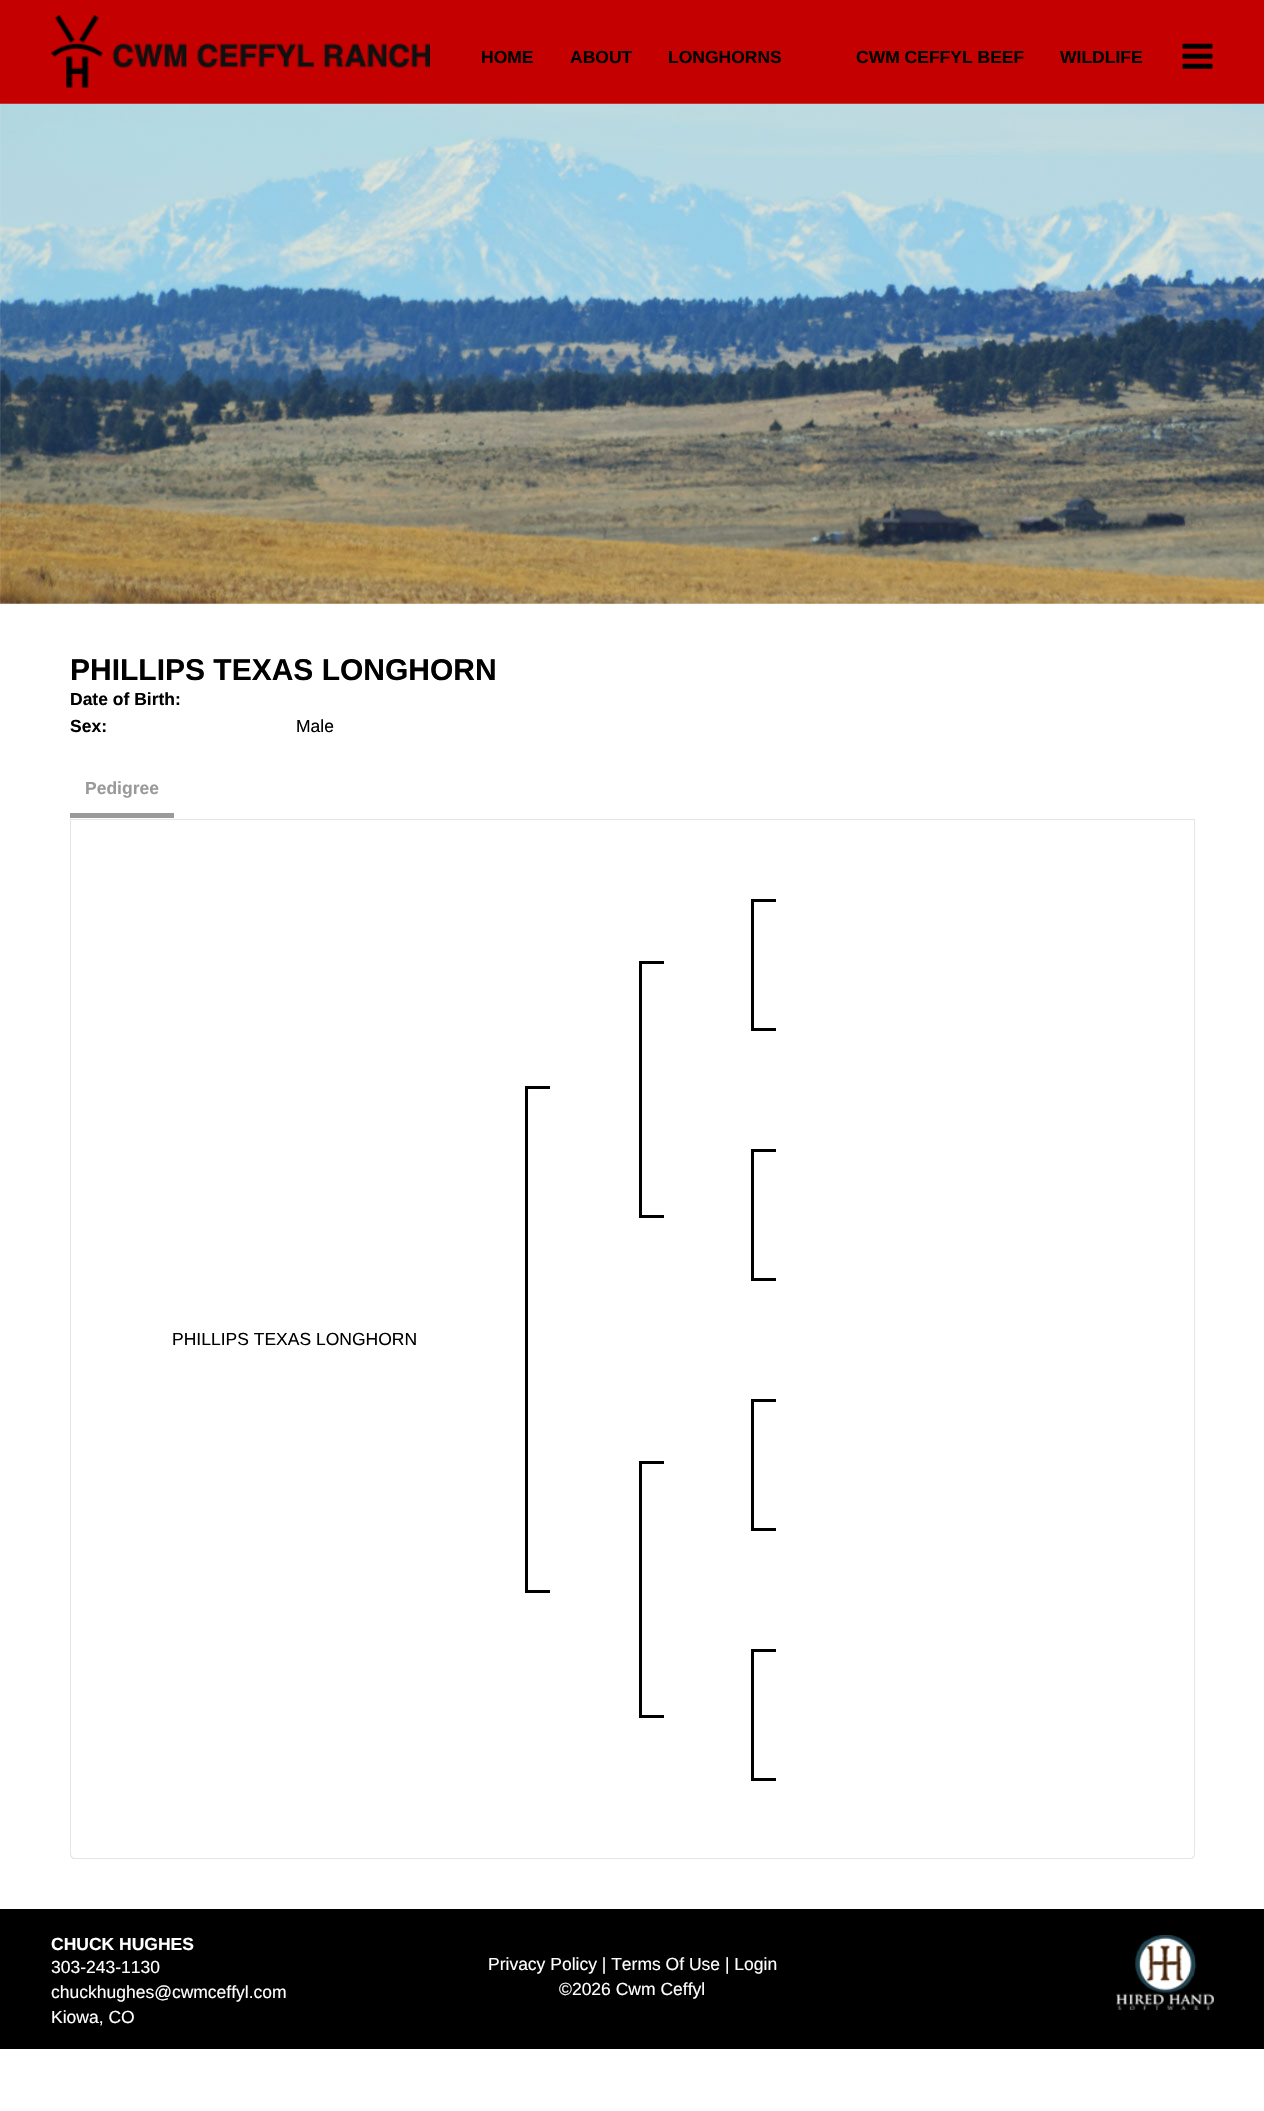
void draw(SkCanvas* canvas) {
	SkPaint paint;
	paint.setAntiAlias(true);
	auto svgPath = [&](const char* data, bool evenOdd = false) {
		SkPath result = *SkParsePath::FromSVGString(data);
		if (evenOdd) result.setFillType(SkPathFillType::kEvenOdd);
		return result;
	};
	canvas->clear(0xffffffff);
	paint.setColor(0xffc40000);
	canvas->drawRect(SkRect::MakeXYWH(0, 0, 1264, 104), paint);
	canvas->drawImageRect(SkImages::DeferredFromEncodedData(SkData::MakeFromFileName("img1.png")), SkRect::MakeXYWH(51, 15, 379, 73), SkSamplingOptions());
	SkFont f1(fontMgr->matchFamilyStyle("Liberation Sans", SkFontStyle::Bold()), 17.5);
	f1.setSubpixel(true);
	paint.setColor(0xff000000);
	canvas->drawString("HOME", 481, 63, f1, paint);
	canvas->drawString("ABOUT", 570, 63, f1, paint);
	canvas->drawString("LONGHORNS", 668, 63, f1, paint);
	canvas->drawString("CWM CEFFYL BEEF", 856, 63, f1, paint);
	canvas->drawString("WILDLIFE", 1060, 63, f1, paint);
	canvas->drawImageRect(SkImages::DeferredFromEncodedData(SkData::MakeFromFileName("img2.png")), SkRect::MakeXYWH(1182, 43, 31, 26), SkSamplingOptions());
	canvas->drawImageRect(SkImages::DeferredFromEncodedData(SkData::MakeFromFileName("img3.png")), SkRect::MakeXYWH(0, 103, 1264, 501), SkSamplingOptions());
	SkFont f2(fontMgr->matchFamilyStyle("Liberation Sans", SkFontStyle::Bold()), 30);
	f2.setSubpixel(true);
	canvas->drawString("PHILLIPS TEXAS LONGHORN", 70, 680, f2, paint);
	canvas->drawString("Date of Birth:", 70, 705, f1, paint);
	canvas->drawString("Sex:", 70, 732, f1, paint);
	SkFont f3(fontMgr->matchFamilyStyle("Liberation Sans", SkFontStyle::Normal()), 17.5);
	f3.setSubpixel(true);
	canvas->drawString("Male", 296, 732, f3, paint);
	paint.setColor(0xffe5e5e5);
	canvas->drawRect(SkRect::MakeXYWH(70, 819, 1125, 1), paint);
	paint.setColor(0xff9b9999);
	canvas->drawRect(SkRect::MakeXYWH(70, 813, 104, 5), paint);
	canvas->drawString("Pedigree", 85, 794, f1, paint);
	paint.setColor(0xffe5e5e5);
	canvas->drawPath(svgPath("M70 820H1195V1854C1195 1857 1193 1859 1190 1859H75C72 1859 70 1857 70 1854ZM71 820H1194V1854C1194 1856 1192 1858 1190 1858H75C73 1858 71 1856 71 1854Z", true), paint);
	paint.setColor(0xff000000);
	canvas->drawRect(SkRect::MakeXYWH(751, 1149, 25, 3), paint);
	canvas->drawRect(SkRect::MakeXYWH(751, 1278, 25, 3), paint);
	canvas->drawRect(SkRect::MakeXYWH(751, 1149, 3, 131), paint);
	canvas->drawString("PHILLIPS TEXAS LONGHORN", 172, 1345, f3, paint);
	canvas->drawRect(SkRect::MakeXYWH(525, 1086, 25, 3), paint);
	canvas->drawRect(SkRect::MakeXYWH(525, 1590, 25, 3), paint);
	canvas->drawRect(SkRect::MakeXYWH(525, 1086, 3, 507), paint);
	canvas->drawRect(SkRect::MakeXYWH(639, 961, 25, 3), paint);
	canvas->drawRect(SkRect::MakeXYWH(639, 1215, 25, 3), paint);
	canvas->drawRect(SkRect::MakeXYWH(639, 961, 3, 257), paint);
	canvas->drawRect(SkRect::MakeXYWH(751, 899, 25, 3), paint);
	canvas->drawRect(SkRect::MakeXYWH(751, 1028, 25, 3), paint);
	canvas->drawRect(SkRect::MakeXYWH(751, 899, 3, 131), paint);
	canvas->drawRect(SkRect::MakeXYWH(639, 1461, 25, 3), paint);
	canvas->drawRect(SkRect::MakeXYWH(639, 1715, 25, 3), paint);
	canvas->drawRect(SkRect::MakeXYWH(639, 1461, 3, 257), paint);
	canvas->drawRect(SkRect::MakeXYWH(751, 1399, 25, 3), paint);
	canvas->drawRect(SkRect::MakeXYWH(751, 1528, 25, 3), paint);
	canvas->drawRect(SkRect::MakeXYWH(751, 1399, 3, 131), paint);
	canvas->drawRect(SkRect::MakeXYWH(751, 1649, 25, 3), paint);
	canvas->drawRect(SkRect::MakeXYWH(751, 1778, 25, 3), paint);
	canvas->drawRect(SkRect::MakeXYWH(751, 1649, 3, 131), paint);
	canvas->drawRect(SkRect::MakeXYWH(0, 1909, 1264, 140), paint);
	paint.setColor(0xffffffff);
	canvas->drawString("CHUCK HUGHES", 51, 1950, f1, paint);
	canvas->drawString("303-243-1130", 51, 1973, f3, paint);
	canvas->drawString("chuckhughes@cwmceffyl.com", 51, 1998, f3, paint);
	canvas->drawString("Kiowa, CO", 51, 2023, f3, paint);
	canvas->drawString("Privacy Policy | Terms Of Use | Login", 488, 1970, f3, paint);
	canvas->drawString("©2026 Cwm Ceffyl", 559, 1995, f3, paint);
	canvas->drawImageRect(SkImages::DeferredFromEncodedData(SkData::MakeFromFileName("img4.png")), SkRect::MakeXYWH(1116, 1935, 98, 75), SkSamplingOptions());
}
